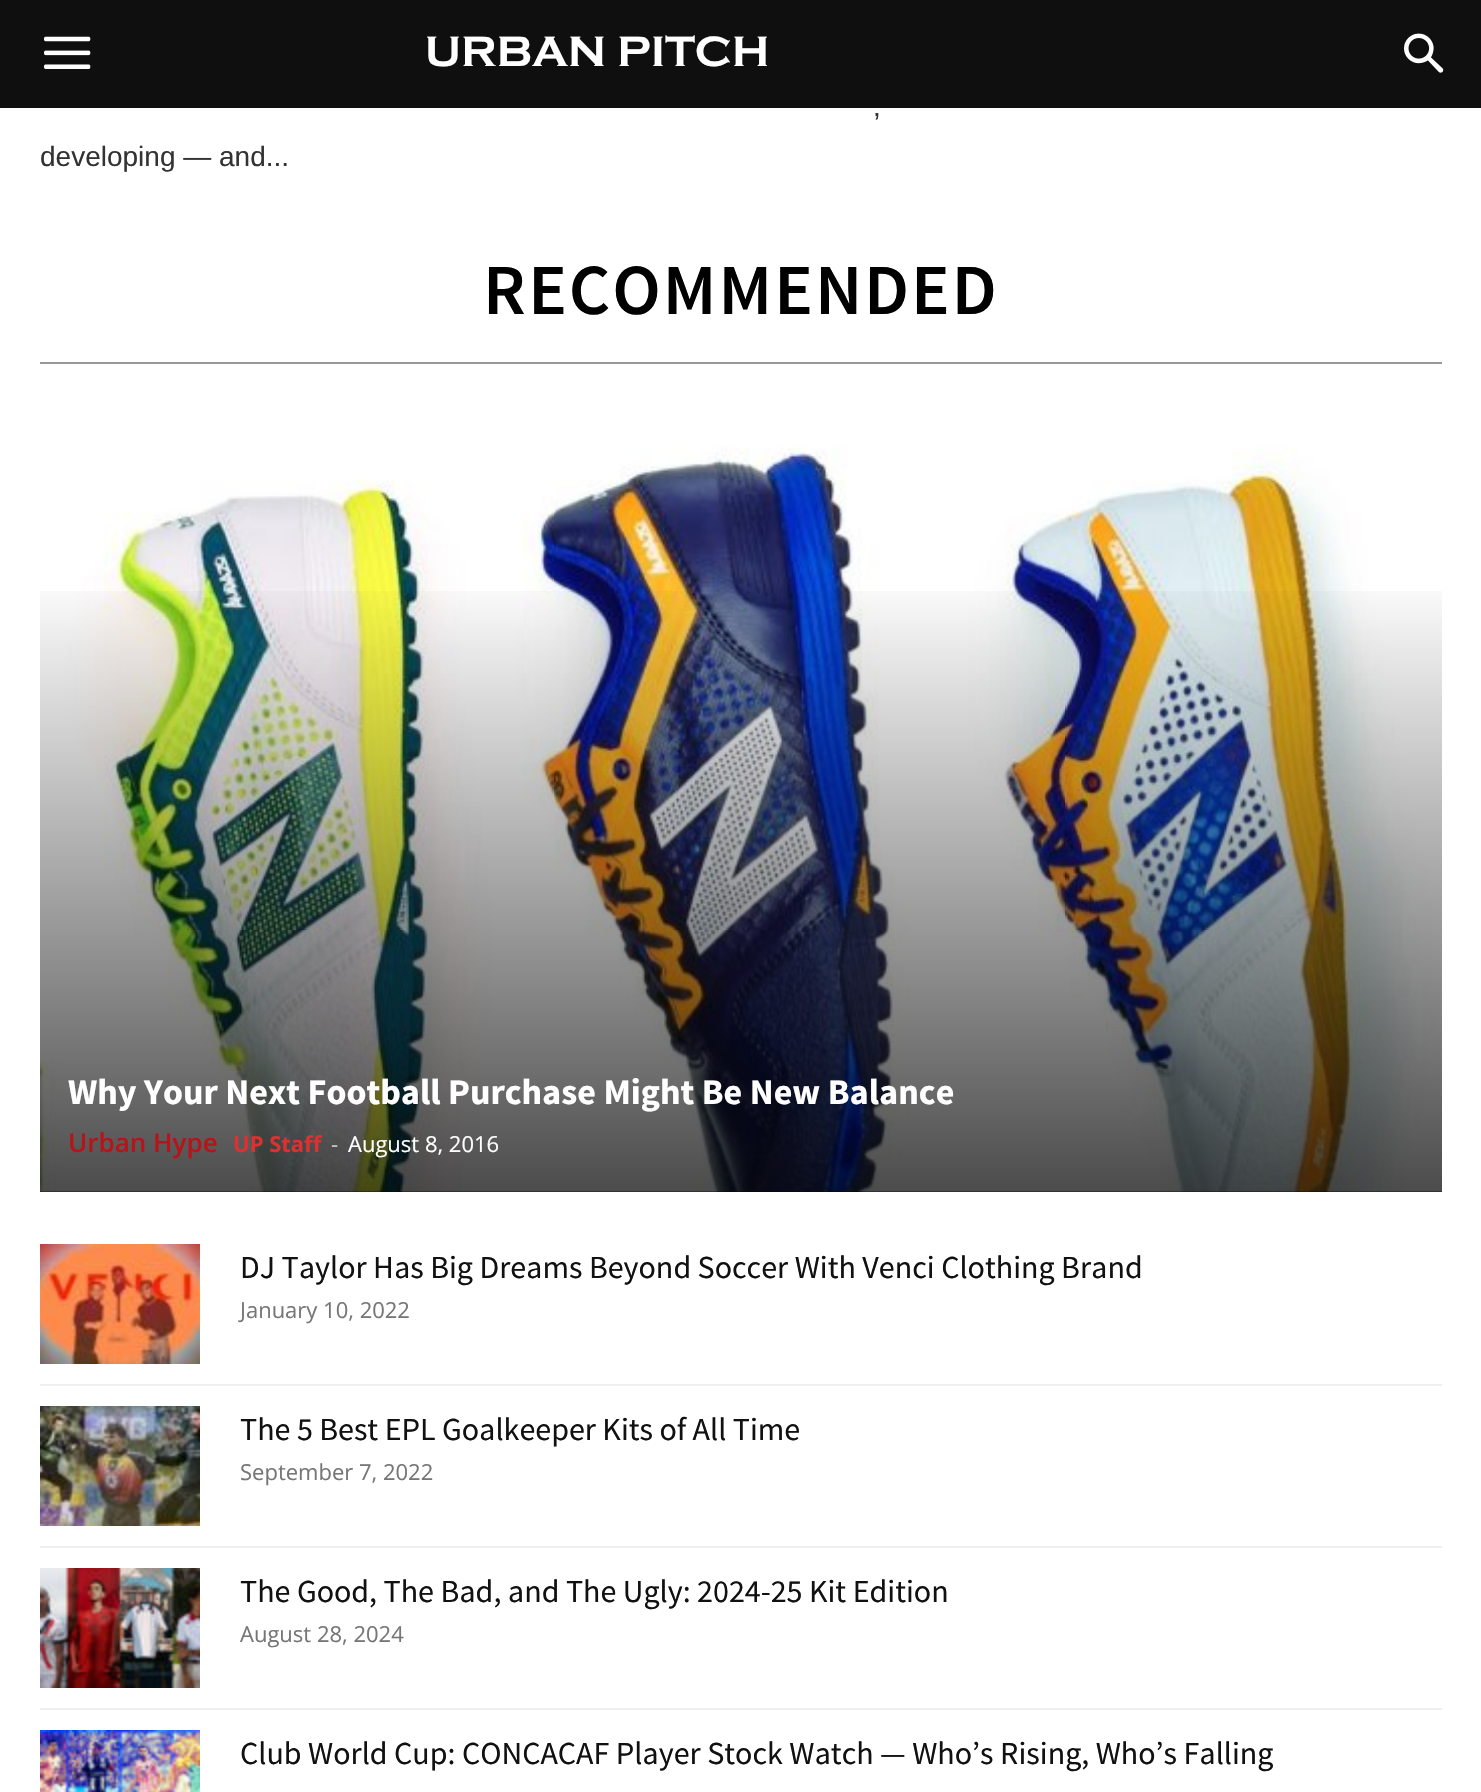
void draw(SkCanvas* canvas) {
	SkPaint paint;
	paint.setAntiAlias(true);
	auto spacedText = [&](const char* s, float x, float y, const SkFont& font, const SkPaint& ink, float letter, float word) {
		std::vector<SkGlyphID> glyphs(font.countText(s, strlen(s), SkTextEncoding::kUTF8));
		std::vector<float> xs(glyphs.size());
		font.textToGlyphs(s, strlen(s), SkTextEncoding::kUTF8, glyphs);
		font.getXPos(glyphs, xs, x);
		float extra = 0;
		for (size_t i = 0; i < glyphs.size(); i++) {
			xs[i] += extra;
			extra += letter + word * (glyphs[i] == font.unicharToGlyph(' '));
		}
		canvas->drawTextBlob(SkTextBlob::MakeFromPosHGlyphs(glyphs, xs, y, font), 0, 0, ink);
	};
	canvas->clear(0xffffffff);
	paint.setColor(0xff0f0f0f);
	canvas->drawRect(SkRect::MakeXYWH(0, 0, 1481, 108), paint);
	canvas->drawImageRect(SkImages::DeferredFromEncodedData(SkData::MakeFromFileName("img1.png")), SkRect::MakeXYWH(44, 36, 47, 33), SkSamplingOptions());
	SkFont f1(fontMgr->matchFamilyStyle("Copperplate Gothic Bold", SkFontStyle::Bold()), 44);
	f1.setSubpixel(true);
	paint.setColor(0xffffffff);
	canvas->drawString("URBAN PITCH", 425, 66, f1, paint);
	canvas->drawImageRect(SkImages::DeferredFromEncodedData(SkData::MakeFromFileName("img2.png")), SkRect::MakeXYWH(1404, 33, 40, 40), SkSamplingOptions());
	SkFont f2(fontMgr->matchFamilyStyle("Liberation Sans", SkFontStyle::Normal()), 28);
	f2.setSubpixel(true);
	paint.setColor(0xff333333);
	canvas->drawString(",", 873, 116, f2, paint);
	canvas->drawString("developing — and...", 40, 166, f2, paint);
	paint.setColor(0xff999999);
	canvas->drawRect(SkRect::MakeXYWH(40, 362, 1402, 2), paint);
	SkFont f3(fontMgr->matchFamilyStyle("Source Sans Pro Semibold", SkFontStyle(600, SkFontStyle::kNormal_Width, SkFontStyle::kUpright_Slant)), 72);
	f3.setSubpixel(true);
	paint.setColor(0xff000000);
	spacedText("RECOMMENDED", 483, 314, f3, paint, 2, 0);
	canvas->drawRect(SkRect::MakeXYWH(40, 1191, 1402, 1), paint);
	canvas->drawImageRect(SkImages::DeferredFromEncodedData(SkData::MakeFromFileName("img3.png")), SkRect::MakeXYWH(40, 416, 1402, 776), SkSamplingOptions());
	{
		const SkColor colors[] = {0x00000000, 0xb3000000};
		const float stops[] = {0, 1};
		const SkPoint ends[] = {{741, 572}, {741, 1192}};
		paint.setShader(SkGradientShader::MakeLinear(ends, colors, stops, 2, SkTileMode::kClamp));
		paint.setAlpha(255);
	}
	canvas->drawRect(SkRect::MakeXYWH(40, 591, 1402, 601), paint);
	SkFont f4(fontMgr->matchFamilyStyle("Source Sans Pro", SkFontStyle::Bold()), 36);
	f4.setSubpixel(true);
	paint.setShader(nullptr);
	paint.setColor(0xffffffff);
	canvas->drawString("Why Your Next Football Purchase Might Be New Balance", 68, 1104, f4, paint);
	SkFont f5(fontMgr->matchFamilyStyle("Open Sans", SkFontStyle(600, SkFontStyle::kNormal_Width, SkFontStyle::kUpright_Slant)), 26);
	f5.setSubpixel(true);
	paint.setColor(0xffb71319);
	canvas->drawString("Urban Hype", 68, 1152, f5, paint);
	SkFont f6(fontMgr->matchFamilyStyle("Open Sans", SkFontStyle::Bold()), 22);
	f6.setSubpixel(true);
	paint.setColor(0xffdd3131);
	canvas->drawString("UP Staff", 233, 1152, f6, paint);
	SkFont f7(fontMgr->matchFamilyStyle("Open Sans", SkFontStyle::Normal()), 22);
	f7.setSubpixel(true);
	paint.setColor(0xffcccccc);
	canvas->drawString("-", 331, 1152, f7, paint);
	paint.setColor(0xffffffff);
	canvas->drawString("August 8, 2016", 348, 1152, f7, paint);
	paint.setColor(0xffefefef);
	canvas->drawRect(SkRect::MakeXYWH(40, 1384, 1402, 2), paint);
	canvas->drawImageRect(SkImages::DeferredFromEncodedData(SkData::MakeFromFileName("img4.png")), SkRect::MakeXYWH(40, 1244, 160, 120), SkSamplingOptions());
	SkFont f8(fontMgr->matchFamilyStyle("Source Sans Pro", SkFontStyle::Normal()), 32);
	f8.setSubpixel(true);
	paint.setColor(0xff111111);
	canvas->drawString("DJ Taylor Has Big Dreams Beyond Soccer With Venci Clothing Brand", 240, 1278, f8, paint);
	paint.setColor(0xff767676);
	canvas->drawString("January 10, 2022", 240, 1318, f7, paint);
	paint.setColor(0xffefefef);
	canvas->drawRect(SkRect::MakeXYWH(40, 1546, 1402, 2), paint);
	canvas->drawImageRect(SkImages::DeferredFromEncodedData(SkData::MakeFromFileName("img5.png")), SkRect::MakeXYWH(40, 1406, 160, 120), SkSamplingOptions());
	paint.setColor(0xff111111);
	canvas->drawString("The 5 Best EPL Goalkeeper Kits of All Time", 240, 1440, f8, paint);
	paint.setColor(0xff767676);
	canvas->drawString("September 7, 2022", 240, 1480, f7, paint);
	paint.setColor(0xffefefef);
	canvas->drawRect(SkRect::MakeXYWH(40, 1708, 1402, 2), paint);
	canvas->drawImageRect(SkImages::DeferredFromEncodedData(SkData::MakeFromFileName("img6.png")), SkRect::MakeXYWH(40, 1568, 160, 120), SkSamplingOptions());
	paint.setColor(0xff111111);
	canvas->drawString("The Good, The Bad, and The Ugly: 2024-25 Kit Edition", 240, 1602, f8, paint);
	paint.setColor(0xff767676);
	canvas->drawString("August 28, 2024", 240, 1642, f7, paint);
	canvas->drawImageRect(SkImages::DeferredFromEncodedData(SkData::MakeFromFileName("img7.png")), SkRect::MakeXYWH(40, 1730, 160, 62), SkSamplingOptions());
	paint.setColor(0xff111111);
	canvas->drawString("Club World Cup: CONCACAF Player Stock Watch — Who’s Rising, Who’s Falling", 240, 1764, f8, paint);
}
